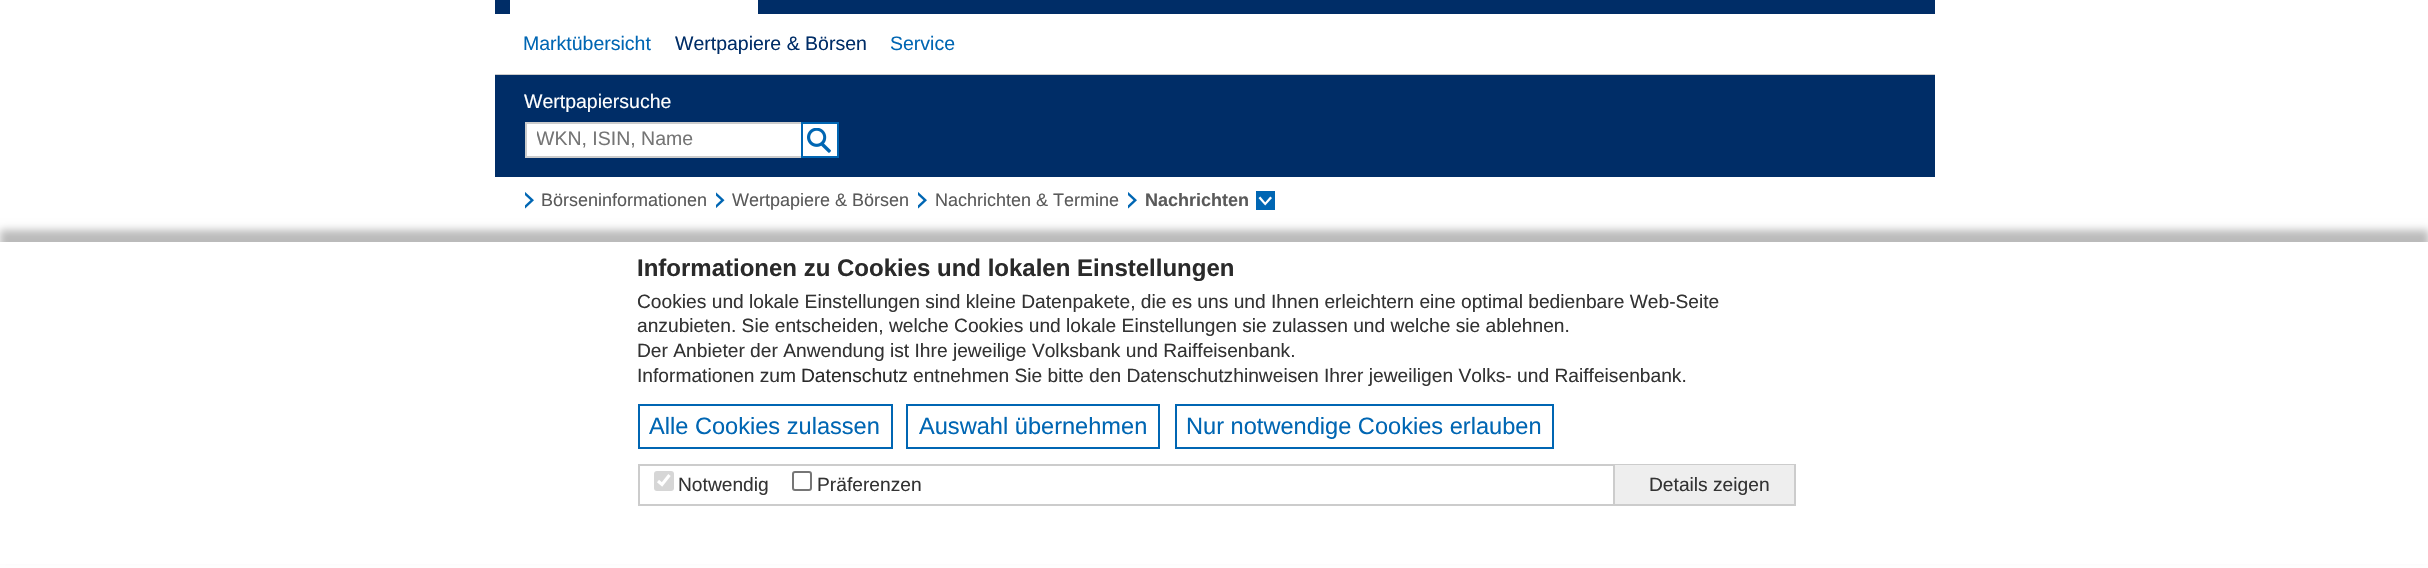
void draw(SkCanvas* canvas) {
	SkPaint paint;
	paint.setAntiAlias(true);
	auto svgPath = [&](const char* data, bool evenOdd = false) {
		SkPath result = *SkParsePath::FromSVGString(data);
		if (evenOdd) result.setFillType(SkPathFillType::kEvenOdd);
		return result;
	};
	canvas->clear(0xffffffff);
	paint.setColor(0xff002d67);
	canvas->drawRect(SkRect::MakeXYWH(495, 0, 1440, 14), paint);
	paint.setColor(0xffffffff);
	canvas->drawRect(SkRect::MakeXYWH(510, 0, 248, 14), paint);
	paint.setColor(0xffcccccc);
	canvas->drawRect(SkRect::MakeXYWH(495, 74, 1440, 1), paint);
	SkFont f1(fontMgr->matchFamilyStyle("Liberation Sans", SkFontStyle::Normal()), 19.5);
	f1.setSubpixel(true);
	paint.setColor(0xff0066b3);
	canvas->drawString("Marktübersicht", 523, 50, f1, paint);
	paint.setColor(0xff002d67);
	canvas->drawString("Wertpapiere & Börsen", 675, 50, f1, paint);
	paint.setColor(0xff0066b3);
	canvas->drawString("Service", 890, 50, f1, paint);
	paint.setColor(0xff002d67);
	canvas->drawRect(SkRect::MakeXYWH(495, 75, 1440, 102), paint);
	paint.setColor(0xffffffff);
	canvas->drawString("Wertpapiersuche", 524, 108, f1, paint);
	canvas->drawRect(SkRect::MakeXYWH(527, 124, 274, 32), paint);
	paint.setColor(0xffcccccc);
	canvas->drawRect(SkRect::MakeXYWH(525, 122, 276, 2), paint);
	canvas->drawRect(SkRect::MakeXYWH(525, 156, 276, 2), paint);
	canvas->drawRect(SkRect::MakeXYWH(525, 122, 2, 36), paint);
	canvas->save();
	canvas->clipRect(SkRect::MakeXYWH(537, 128, 264, 22));
	paint.setColor(0xff757575);
	canvas->drawString("WKN, ISIN, Name", 536, 145, f1, paint);
	canvas->restore();
	paint.setColor(0xffffffff);
	canvas->drawRect(SkRect::MakeXYWH(803, 124, 34, 32), paint);
	canvas->drawImageRect(SkImages::DeferredFromEncodedData(SkData::MakeFromFileName("img1.png")), SkRect::MakeXYWH(807, 128, 24, 25), SkSamplingOptions());
	paint.setStroke(true);
	paint.setStrokeWidth(2);
	paint.setColor(0xff0066b3);
	canvas->drawRect(SkRect::MakeXYWH(802, 123, 36, 34), paint);
	canvas->drawImageRect(SkImages::DeferredFromEncodedData(SkData::MakeFromFileName("img2.png")), SkRect::MakeXYWH(525, 192, 9, 17), SkSamplingOptions());
	SkFont f2(fontMgr->matchFamilyStyle("Liberation Sans", SkFontStyle::Normal()), 18);
	f2.setSubpixel(true);
	paint.setStroke(false);
	paint.setColor(0xff5a5a5a);
	canvas->drawString("Börseninformationen", 541, 206, f2, paint);
	canvas->drawImageRect(SkImages::DeferredFromEncodedData(SkData::MakeFromFileName("img3.png")), SkRect::MakeXYWH(716, 192, 9, 16), SkSamplingOptions());
	canvas->drawString("Wertpapiere & Börsen", 732, 206, f2, paint);
	canvas->drawImageRect(SkImages::DeferredFromEncodedData(SkData::MakeFromFileName("img2.png")), SkRect::MakeXYWH(918, 192, 9, 17), SkSamplingOptions());
	canvas->drawString("Nachrichten & Termine", 935, 206, f2, paint);
	canvas->drawImageRect(SkImages::DeferredFromEncodedData(SkData::MakeFromFileName("img2.png")), SkRect::MakeXYWH(1128, 192, 9, 17), SkSamplingOptions());
	SkFont f3(fontMgr->matchFamilyStyle("Liberation Sans", SkFontStyle::Bold()), 18);
	f3.setSubpixel(true);
	canvas->drawString("Nachrichten", 1145, 206, f3, paint);
	canvas->drawImageRect(SkImages::DeferredFromEncodedData(SkData::MakeFromFileName("img4.png")), SkRect::MakeXYWH(1256, 191, 19, 19), SkSamplingOptions());
	paint.setColor(0xffbbbbbb);
	paint.setMaskFilter(SkMaskFilter::MakeBlur(kNormal_SkBlurStyle, 4));
	canvas->drawRect(SkRect::MakeXYWH(0, 230, 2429, 327), paint);
	paint.setMaskFilter(nullptr);
	paint.setColor(0xffffffff);
	canvas->drawRect(SkRect::MakeXYWH(0, 242, 2428, 322), paint);
	SkFont f4(fontMgr->matchFamilyStyle("Liberation Sans", SkFontStyle::Bold()), 24);
	f4.setSubpixel(true);
	paint.setColor(0xff2a2a2a);
	canvas->drawString("Informationen zu Cookies und lokalen Einstellungen", 637, 276, f4, paint);
	SkFont f5(fontMgr->matchFamilyStyle("Liberation Sans", SkFontStyle::Normal()), 19.2);
	f5.setSubpixel(true);
	paint.setColor(0xff333333);
	canvas->drawString("Cookies und lokale Einstellungen sind kleine Datenpakete, die es uns und Ihnen erleichtern eine optimal bedienbare Web-Seite", 637, 308, f5, paint);
	canvas->drawString("anzubieten. Sie entscheiden, welche Cookies und lokale Einstellungen sie zulassen und welche sie ablehnen.", 637, 332, f5, paint);
	canvas->drawString("Der Anbieter der Anwendung ist Ihre jeweilige Volksbank und Raiffeisenbank.", 637, 357, f5, paint);
	canvas->drawString("Informationen zum", 637, 382, f5, paint);
	paint.setColor(0xff2a2a2a);
	canvas->drawString("Datenschutz", 801, 382, f5, paint);
	paint.setColor(0xff333333);
	canvas->drawString("entnehmen Sie bitte den Datenschutzhinweisen Ihrer jeweiligen Volks- und Raiffeisenbank.", 913, 382, f5, paint);
	paint.setStroke(true);
	paint.setColor(0xff0066b3);
	canvas->drawRect(SkRect::MakeXYWH(639, 405, 253, 43), paint);
	SkFont f6(fontMgr->matchFamilyStyle("Liberation Sans", SkFontStyle::Normal()), 23.6);
	f6.setSubpixel(true);
	paint.setStroke(false);
	canvas->drawString("Alle Cookies zulassen", 649, 434, f6, paint);
	paint.setStroke(true);
	canvas->drawRect(SkRect::MakeXYWH(907, 405, 252, 43), paint);
	paint.setStroke(false);
	canvas->drawString("Auswahl übernehmen", 919, 434, f6, paint);
	paint.setStroke(true);
	canvas->drawRect(SkRect::MakeXYWH(1176, 405, 377, 43), paint);
	paint.setStroke(false);
	canvas->drawString("Nur notwendige Cookies erlauben", 1186, 434, f6, paint);
	paint.setStroke(true);
	paint.setColor(0xffcccccc);
	canvas->drawRect(SkRect::MakeXYWH(639, 465, 1156, 40), paint);
	paint.setStroke(false);
	paint.setColor(0xffd6d6d6);
	canvas->drawRoundRect(SkRect::MakeXYWH(654, 471, 20, 20), 3, 3, paint);
	paint.setStroke(true);
	paint.setStrokeWidth(3.1);
	paint.setColor(0xffffffff);
	canvas->drawPath(svgPath("M658 481L662 484.5L669.5 475"), paint);
	paint.setStroke(false);
	paint.setColor(0xff333333);
	canvas->drawString("Notwendig", 678, 491, f5, paint);
	paint.setStroke(true);
	paint.setStrokeWidth(2);
	paint.setColor(0xff767676);
	canvas->drawRoundRect(SkRect::MakeXYWH(793, 472, 18, 18), 2, 2, paint);
	paint.setStroke(false);
	paint.setColor(0xff333333);
	canvas->drawString("Präferenzen", 817, 491, f5, paint);
	paint.setColor(0xffeeeeee);
	canvas->drawRect(SkRect::MakeXYWH(1615, 465, 179, 39), paint);
	paint.setColor(0xffcccccc);
	canvas->drawRect(SkRect::MakeXYWH(1613, 465, 2, 39), paint);
	paint.setColor(0xff333333);
	canvas->drawString("Details zeigen", 1649, 491, f5, paint);
}
